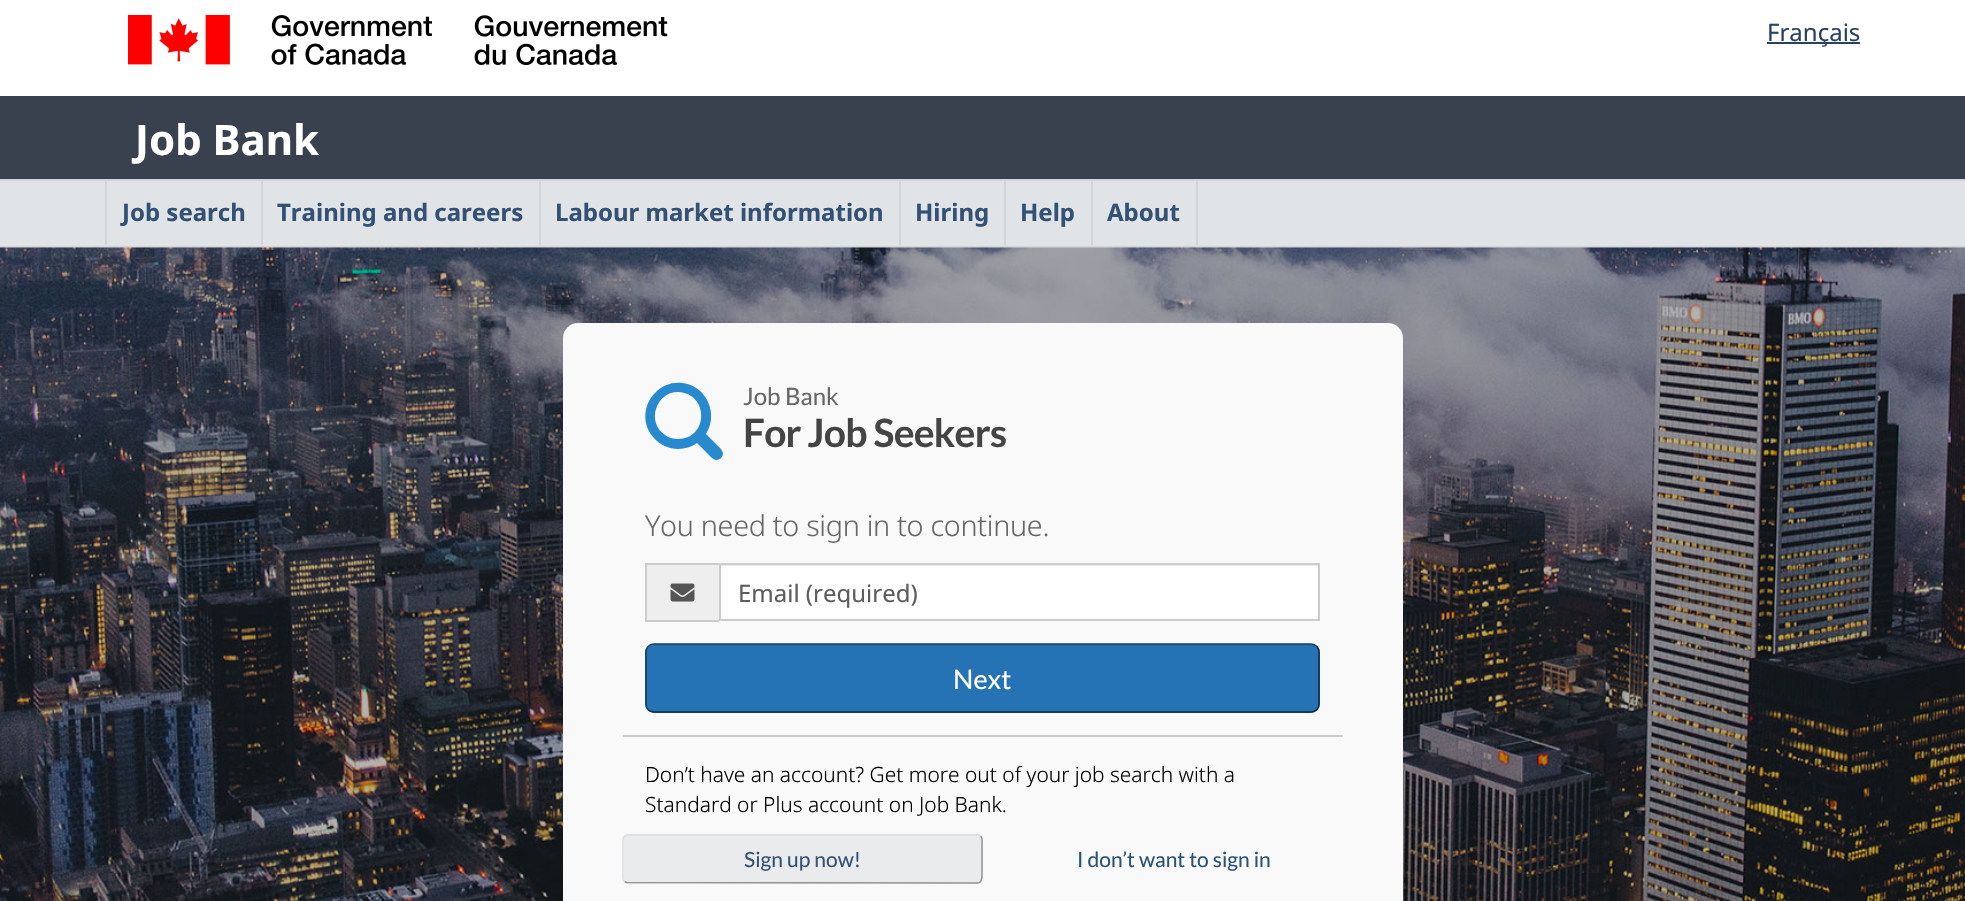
void draw(SkCanvas* canvas) {
	SkPaint paint;
	paint.setAntiAlias(true);
	auto spacedText = [&](const char* s, float x, float y, const SkFont& font, const SkPaint& ink, float letter, float word) {
		std::vector<SkGlyphID> glyphs(font.countText(s, strlen(s), SkTextEncoding::kUTF8));
		std::vector<float> xs(glyphs.size());
		font.textToGlyphs(s, strlen(s), SkTextEncoding::kUTF8, glyphs);
		font.getXPos(glyphs, xs, x);
		float extra = 0;
		for (size_t i = 0; i < glyphs.size(); i++) {
			xs[i] += extra;
			extra += letter + word * (glyphs[i] == font.unicharToGlyph(' '));
		}
		canvas->drawTextBlob(SkTextBlob::MakeFromPosHGlyphs(glyphs, xs, y, font), 0, 0, ink);
	};
	auto svgPath = [&](const char* data, bool evenOdd = false) {
		SkPath result = *SkParsePath::FromSVGString(data);
		if (evenOdd) result.setFillType(SkPathFillType::kEvenOdd);
		return result;
	};
	canvas->clear(0xffffffff);
	canvas->drawImageRect(SkImages::DeferredFromEncodedData(SkData::MakeFromFileName("img1.png")), SkRect::MakeXYWH(128, 15, 540, 50), SkSamplingOptions());
	paint.setColor(0xff284162);
	canvas->drawRect(SkRect::MakeXYWH(1767, 42, 93, 2), paint);
	SkFont f1(fontMgr->matchFamilyStyle("Noto Sans", SkFontStyle::Normal()), 24);
	f1.setSubpixel(true);
	canvas->drawString("Français", 1767, 41, f1, paint);
	paint.setColor(0xff38414d);
	canvas->drawRect(SkRect::MakeXYWH(0, 96, 1965, 83), paint);
	SkFont f2(fontMgr->matchFamilyStyle("Noto Sans", SkFontStyle::Bold()), 42);
	f2.setSubpixel(true);
	paint.setColor(0xffffffff);
	canvas->drawString("Job Bank", 135, 155, f2, paint);
	paint.setColor(0xffe1e4e7);
	canvas->drawRect(SkRect::MakeXYWH(0, 181, 1965, 65), paint);
	paint.setColor(0xffd3d4d8);
	canvas->drawRect(SkRect::MakeXYWH(0, 179, 1965, 2), paint);
	canvas->drawRect(SkRect::MakeXYWH(0, 246, 1965, 2), paint);
	canvas->drawRect(SkRect::MakeXYWH(105, 180, 2, 65), paint);
	SkFont f3(fontMgr->matchFamilyStyle("Noto Sans", SkFontStyle::Bold()), 24);
	f3.setSubpixel(true);
	paint.setColor(0xff335075);
	canvas->drawString("Job search", 122, 221, f3, paint);
	paint.setColor(0xffd3d4d8);
	canvas->drawRect(SkRect::MakeXYWH(261, 180, 2, 65), paint);
	paint.setColor(0xff335075);
	canvas->drawString("Training and careers", 277, 221, f3, paint);
	paint.setColor(0xffd3d4d8);
	canvas->drawRect(SkRect::MakeXYWH(539, 180, 2, 65), paint);
	paint.setColor(0xff335075);
	canvas->drawString("Labour market information", 555, 221, f3, paint);
	paint.setColor(0xffd3d4d8);
	canvas->drawRect(SkRect::MakeXYWH(899, 180, 2, 65), paint);
	paint.setColor(0xff335075);
	canvas->drawString("Hiring", 915, 221, f3, paint);
	paint.setColor(0xffd3d4d8);
	canvas->drawRect(SkRect::MakeXYWH(1004, 180, 2, 65), paint);
	paint.setColor(0xff335075);
	canvas->drawString("Help", 1020, 221, f3, paint);
	paint.setColor(0xffd3d4d8);
	canvas->drawRect(SkRect::MakeXYWH(1196, 180, 2, 65), paint);
	canvas->drawRect(SkRect::MakeXYWH(1091, 180, 2, 65), paint);
	paint.setColor(0xff335075);
	canvas->drawString("About", 1107, 221, f3, paint);
	canvas->drawImageRect(SkImages::DeferredFromEncodedData(SkData::MakeFromFileName("img2.png")), SkRect::MakeXYWH(0, 247, 1965, 654), SkSamplingOptions());
	paint.setColor(0xfff9f9f9);
	canvas->drawRoundRect(SkRect::MakeXYWH(563, 323, 840, 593), 15, 15, paint);
	paint.setColor(0xff278acf);
	canvas->drawPath(svgPath("M721 449L706 434C715 420 712 401 699 390C686 380 667 380 655 393C643 405 642 424 653 437C664 450 683 453 697 443L707 453C711 457 715 463 721 458C722 457 723 455 723 453ZM678 392C709 393 709 439 678 439C674 439 669 438 665 435C646 422 656 392 678 392Z"), paint);
	SkFont f4(fontMgr->matchFamilyStyle("Lato", SkFontStyle::Normal()), 24);
	f4.setSubpixel(true);
	paint.setColor(0xff666666);
	canvas->drawString("Job Bank", 743, 405, f4, paint);
	SkFont f5(fontMgr->matchFamilyStyle("Lato", SkFontStyle::Bold()), 39);
	f5.setSubpixel(true);
	paint.setColor(0xff444444);
	spacedText("For Job Seekers", 743, 447, f5, paint, -0.75, 0);
	SkFont f6(fontMgr->matchFamilyStyle("Noto Sans", SkFontStyle(300, SkFontStyle::kNormal_Width, SkFontStyle::kUpright_Slant)), 28.75);
	f6.setSubpixel(true);
	paint.setColor(0xff666666);
	spacedText("You need to sign in to continue.", 645, 536, f6, paint, -0.3, 0);
	paint.setColor(0xffeeeeee);
	canvas->drawRect(SkRect::MakeXYWH(647, 565, 72, 55), paint);
	paint.setColor(0xffcccccc);
	canvas->drawRect(SkRect::MakeXYWH(645, 563, 74, 2), paint);
	canvas->drawRect(SkRect::MakeXYWH(645, 620, 74, 2), paint);
	canvas->drawRect(SkRect::MakeXYWH(645, 563, 2, 58), paint);
	canvas->drawImageRect(SkImages::DeferredFromEncodedData(SkData::MakeFromFileName("img3.png")), SkRect::MakeXYWH(670, 583, 25, 19), SkSamplingOptions());
	paint.setColor(0xffffffff);
	canvas->drawRect(SkRect::MakeXYWH(721, 566, 597, 53), paint);
	paint.setColor(0xffececec);
	canvas->drawRect(SkRect::MakeXYWH(720, 565, 599, 1), paint);
	paint.setStroke(true);
	paint.setStrokeWidth(2);
	paint.setColor(0xffcccccc);
	canvas->drawRect(SkRect::MakeXYWH(720, 564, 599, 56), paint);
	paint.setStroke(false);
	paint.setColor(0xff5c5c5c);
	canvas->drawString("Email (required)", 738, 602, f1, paint);
	paint.setColor(0xff2572b4);
	canvas->drawRoundRect(SkRect::MakeXYWH(645, 644, 675, 69), 9, 9, paint);
	paint.setStroke(true);
	paint.setStrokeWidth(1.5);
	paint.setColor(0xff0d283f);
	canvas->drawPath(svgPath("M1317 646.5C1318.5 648 1319 650.5 1319 652.5V703.5C1319 705.5 1318.5 708 1317 709.5C1315.5 711 1313 712 1311 712H654C652 712 649.5 711 648 709.5"), paint);
	paint.setColor(0xff143c5f);
	canvas->drawPath(svgPath("M648 709.5C646.5 708 646 705.5 646 703.5V652.5C646 650.5 646.5 648 648 646.5C649.5 645 652 644 654 644H1311C1313 644 1315.5 645 1317 646.5"), paint);
	SkFont f7(fontMgr->matchFamilyStyle("Lato", SkFontStyle::Normal()), 27);
	f7.setSubpixel(true);
	paint.setStroke(false);
	paint.setColor(0xffffffff);
	canvas->drawString("Next", 953, 689, f7, paint);
	paint.setColor(0xffcccccc);
	canvas->drawRect(SkRect::MakeXYWH(623, 735, 720, 2), paint);
	SkFont f8(fontMgr->matchFamilyStyle("Noto Sans", SkFontStyle(300, SkFontStyle::kNormal_Width, SkFontStyle::kUpright_Slant)), 20.9);
	f8.setSubpixel(true);
	paint.setColor(0xff000000);
	canvas->drawString("Don’t have an account? Get more out of your job search with a", 645, 782, f8, paint);
	canvas->drawString("Standard or Plus account on Job Bank.", 645, 812, f8, paint);
	paint.setColor(0xffeaebed);
	canvas->drawRoundRect(SkRect::MakeXYWH(623, 834, 360, 50), 5, 5, paint);
	paint.setStroke(true);
	paint.setColor(0xff939496);
	canvas->drawPath(svgPath("M980.5 836C983 838 982 843.5 982 845V872C982 875 983 882.5 978 883L626.5 882.5L624.5 881.5"), paint);
	paint.setColor(0xffdcdee1);
	canvas->drawPath(svgPath("M624.5 881.5C622 879.5 623 874 623 872V845C623 842.5 622 835 627 835H978.5L980.5 836"), paint);
	SkFont f9(fontMgr->matchFamilyStyle("Lato", SkFontStyle::Normal()), 21);
	f9.setSubpixel(true);
	paint.setStroke(false);
	paint.setColor(0xff335075);
	canvas->drawString("Sign up now!", 744, 867, f9, paint);
	paint.setColor(0xff295376);
	canvas->drawString("I don’t want to sign in", 1077, 867, f9, paint);
}
